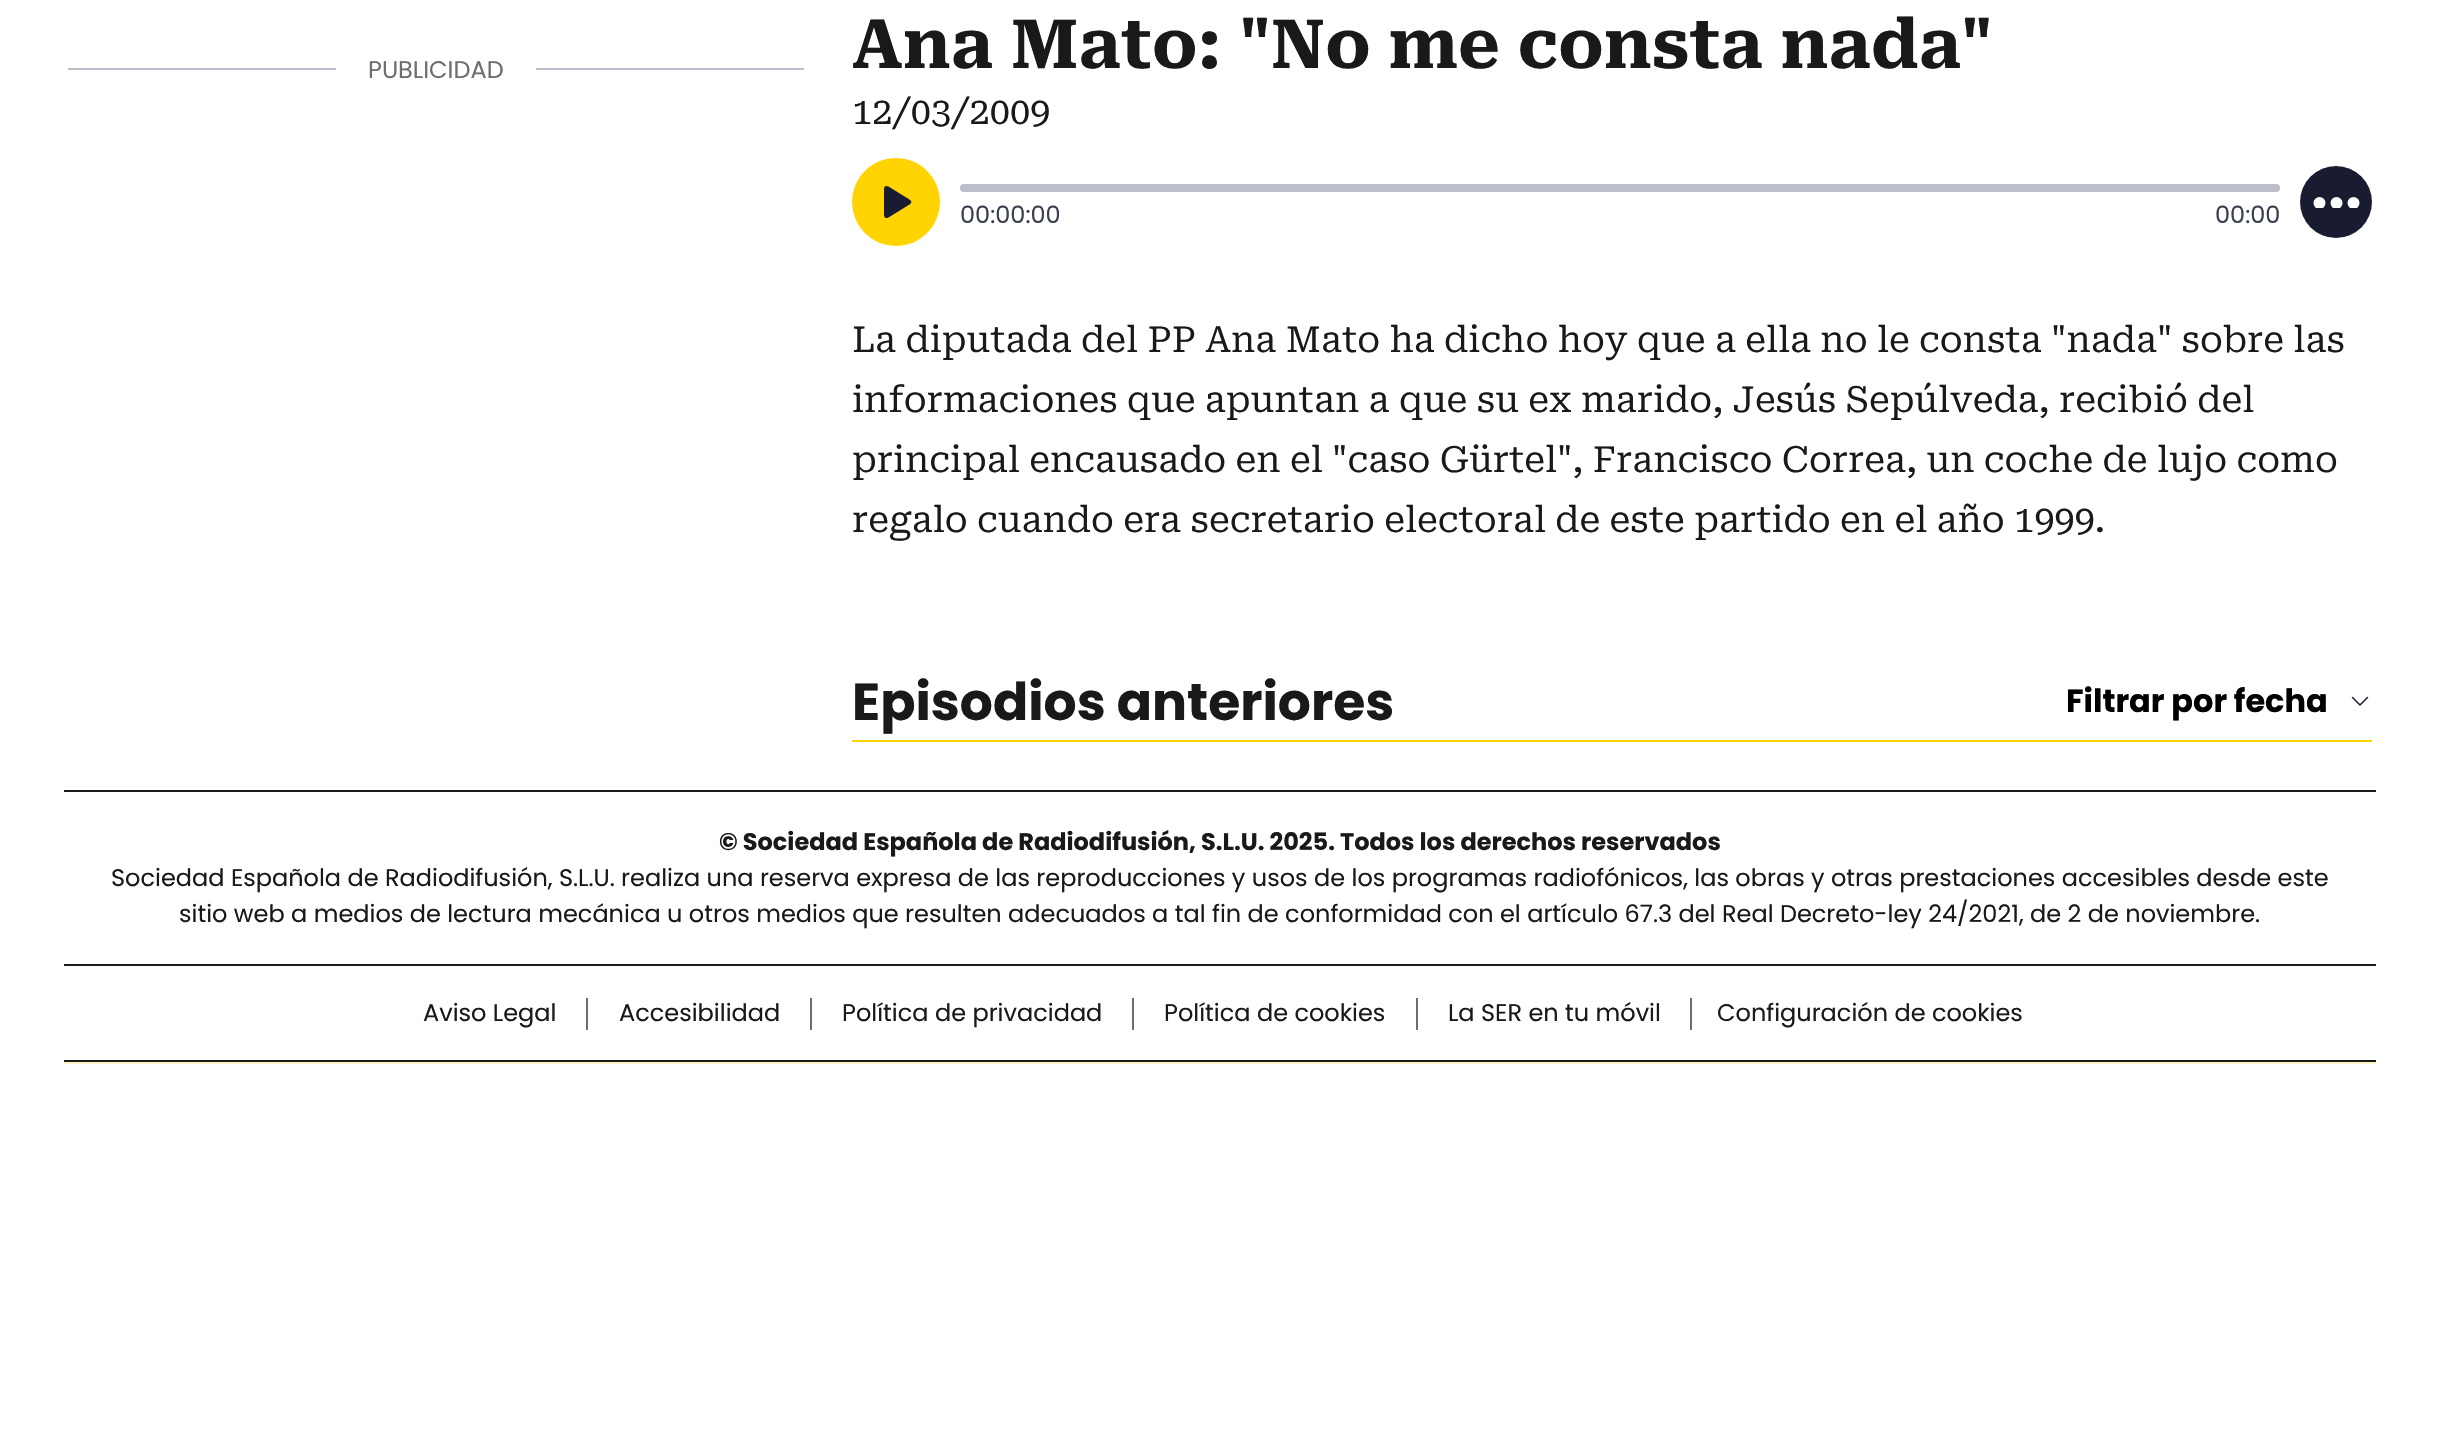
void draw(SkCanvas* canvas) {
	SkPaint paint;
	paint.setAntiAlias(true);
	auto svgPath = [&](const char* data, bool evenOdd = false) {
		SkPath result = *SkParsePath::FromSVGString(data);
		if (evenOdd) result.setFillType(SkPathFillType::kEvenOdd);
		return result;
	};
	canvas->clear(0xffffffff);
	paint.setColor(0xffbdbecb);
	canvas->drawRect(SkRect::MakeXYWH(68, 68, 736, 2), paint);
	paint.setColor(0xffffffff);
	canvas->drawRect(SkRect::MakeXYWH(336, 68, 200, 2), paint);
	SkFont f1(fontMgr->matchFamilyStyle("Poppins", SkFontStyle::Normal()), 24);
	f1.setSubpixel(true);
	paint.setColor(0xff726c6c);
	canvas->drawString("PUBLICIDAD", 368, 78, f1, paint);
	SkFont f2(fontMgr->matchFamilyStyle("Roboto Serif", SkFontStyle::Bold()), 68);
	f2.setSubpixel(true);
	paint.setColor(0xff191919);
	canvas->drawString("Ana Mato: \"No me consta nada\"", 852, 68, f2, paint);
	SkFont f3(fontMgr->matchFamilyStyle("Roboto Serif", SkFontStyle::Normal()), 36);
	f3.setSubpixel(true);
	canvas->drawString("12/03/2009", 852, 124, f3, paint);
	paint.setColor(0xffffd400);
	canvas->drawCircle(896, 202, 44, paint);
	paint.setColor(0xff191c30);
	canvas->drawPath(svgPath("M888.5 186.5C886 185 884 186.5 884 189V215C884 217.5 886 219 888.5 217.5L909.5 204.5C912 203 912 201 909.5 199.5Z", true), paint);
	paint.setColor(0xffbdbecc);
	canvas->drawRoundRect(SkRect::MakeXYWH(960, 184, 1320, 8), 4, 4, paint);
	paint.setColor(0xff3a3f52);
	canvas->drawString("00:00:00", 960, 223, f1, paint);
	canvas->drawString("00:00", 2215, 223, f1, paint);
	paint.setColor(0xff191c30);
	canvas->drawCircle(2336, 202, 36, paint);
	canvas->save();
	canvas->clipRect(SkRect::MakeXYWH(2312, 196, 48, 12));
	paint.setColor(0xffffffff);
	canvas->drawCircle(2319.5, 203, 6, paint);
	canvas->drawCircle(2336.5, 203, 6, paint);
	canvas->drawCircle(2353.5, 203, 6, paint);
	canvas->restore();
	paint.setColor(0xff191919);
	canvas->drawString("La diputada del PP Ana Mato ha dicho hoy que a ella no le consta \"nada\" sobre las", 852, 352, f3, paint);
	canvas->drawString("informaciones que apuntan a que su ex marido, Jesús Sepúlveda, recibió del", 852, 412, f3, paint);
	canvas->drawString("principal encausado en el \"caso Gürtel\", Francisco Correa, un coche de lujo como", 852, 472, f3, paint);
	canvas->drawString("regalo cuando era secretario electoral de este partido en el año 1999.", 852, 532, f3, paint);
	paint.setColor(0xffffd400);
	canvas->drawRect(SkRect::MakeXYWH(852, 740, 1520, 2), paint);
	SkFont f4(fontMgr->matchFamilyStyle("Poppins", SkFontStyle::Bold()), 52);
	f4.setSubpixel(true);
	paint.setColor(0xff191919);
	canvas->drawString("Episodios anteriores", 852, 720, f4, paint);
	paint.setStroke(true);
	paint.setStrokeWidth(1.5);
	paint.setStrokeCap(SkPaint::kRound_Cap);
	paint.setColor(0xff191c30);
	canvas->drawPath(svgPath("M2352.5 697.5L2360 705L2367.5 697.5"), paint);
	SkFont f5(fontMgr->matchFamilyStyle("Poppins", SkFontStyle::Bold()), 32);
	f5.setSubpixel(true);
	paint.setStroke(false);
	paint.setColor(0xff000000);
	canvas->drawString("Filtrar por fecha", 2066, 712, f5, paint);
	paint.setColor(0xff191919);
	canvas->drawRect(SkRect::MakeXYWH(64, 790, 2312, 2), paint);
	canvas->drawRect(SkRect::MakeXYWH(64, 964, 2312, 2), paint);
	SkFont f6(fontMgr->matchFamilyStyle("Poppins", SkFontStyle::Bold()), 24);
	f6.setSubpixel(true);
	canvas->drawString("© Sociedad Española de Radiodifusión, S.L.U. 2025. Todos los derechos reservados", 719, 850, f6, paint);
	canvas->drawString("Sociedad Española de Radiodifusión, S.L.U. realiza una reserva expresa de las reproducciones y usos de los programas radiofónicos, las obras y otras prestaciones accesibles desde este", 111, 886, f1, paint);
	canvas->drawString("sitio web a medios de lectura mecánica u otros medios que resulten adecuados a tal fin de conformidad con el artículo 67.3 del Real Decreto-ley 24/2021, de 2 de noviembre.", 179, 922, f1, paint);
	canvas->drawRect(SkRect::MakeXYWH(64, 1060, 2312, 2), paint);
	paint.setColor(0xff726c6c);
	canvas->drawRect(SkRect::MakeXYWH(586, 998, 2, 32), paint);
	paint.setColor(0xff191919);
	canvas->drawString("Aviso Legal", 423, 1021, f1, paint);
	paint.setColor(0xff726c6c);
	canvas->drawRect(SkRect::MakeXYWH(810, 998, 2, 32), paint);
	paint.setColor(0xff191919);
	canvas->drawString("Accesibilidad", 619, 1021, f1, paint);
	paint.setColor(0xff726c6c);
	canvas->drawRect(SkRect::MakeXYWH(1132, 998, 2, 32), paint);
	paint.setColor(0xff191919);
	canvas->drawString("Política de privacidad", 842, 1021, f1, paint);
	paint.setColor(0xff726c6c);
	canvas->drawRect(SkRect::MakeXYWH(1416, 998, 2, 32), paint);
	paint.setColor(0xff191919);
	canvas->drawString("Política de cookies", 1164, 1021, f1, paint);
	paint.setColor(0xff726c6c);
	canvas->drawRect(SkRect::MakeXYWH(1690, 998, 2, 32), paint);
	paint.setColor(0xff191919);
	canvas->drawString("La SER en tu móvil", 1448, 1021, f1, paint);
	canvas->drawString("Configuración de cookies", 1717, 1021, f1, paint);
	paint.setColor(0xfffff5c5);
	canvas->drawRect(SkRect::MakeXYWH(64, 1062, 2312, 2), paint);
}
